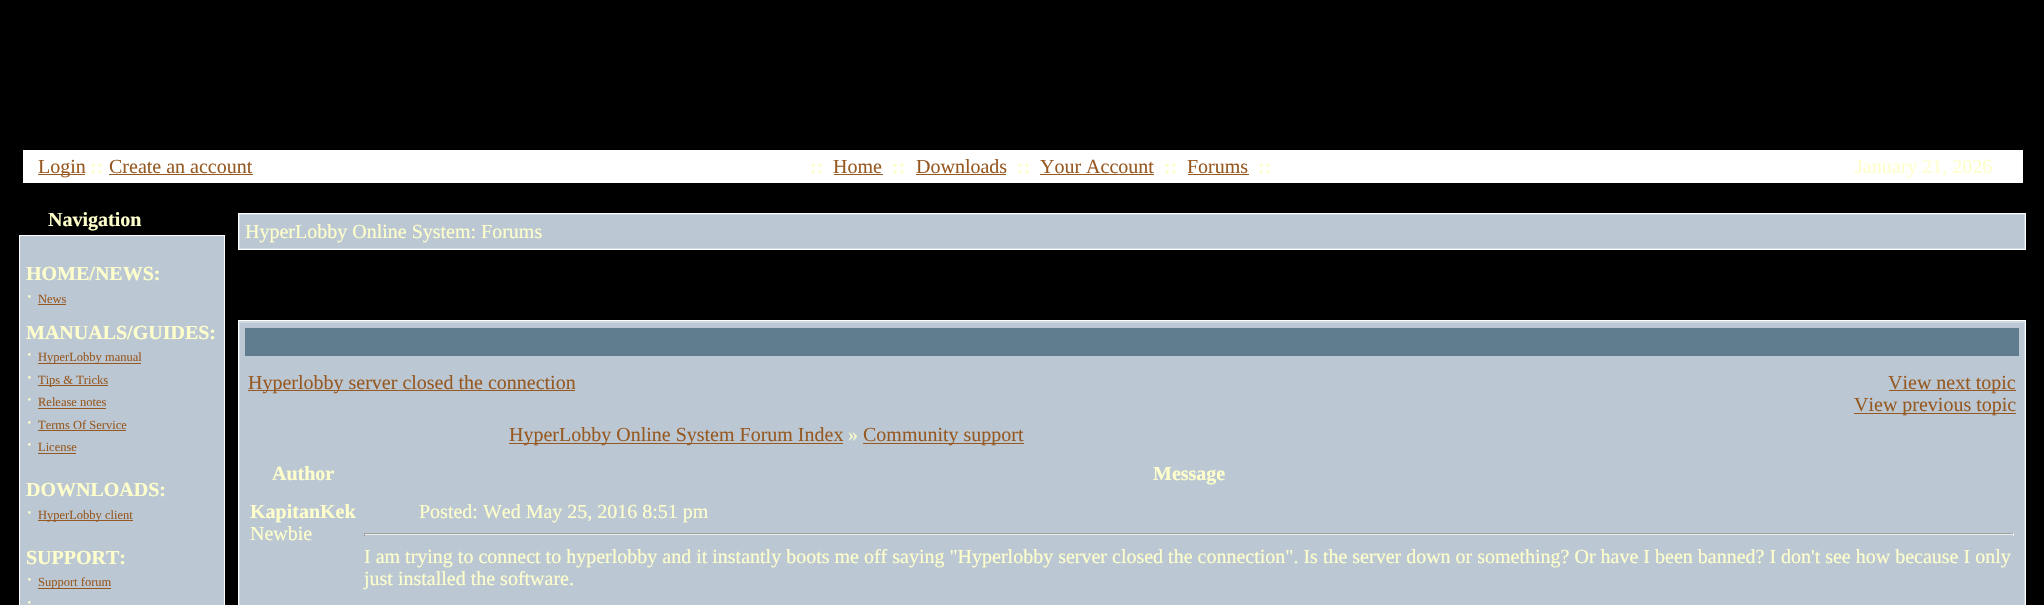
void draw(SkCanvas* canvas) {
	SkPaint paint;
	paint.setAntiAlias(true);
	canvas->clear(0xff000000);
	paint.setColor(0xffffffff);
	canvas->drawRect(SkRect::MakeXYWH(23, 150, 2000, 33), paint);
	paint.setColor(0xff975922);
	canvas->drawRect(SkRect::MakeXYWH(38, 174, 47, 1), paint);
	SkFont f1(fontMgr->matchFamilyStyle("Liberation Serif", SkFontStyle::Normal()), 20);
	f1.setSubpixel(true);
	canvas->drawString("Login", 38, 173, f1, paint);
	SkFont f2(fontMgr->matchFamilyStyle("Liberation Serif", SkFontStyle::Bold()), 20);
	f2.setSubpixel(true);
	paint.setColor(0xffffffcc);
	canvas->drawString("::", 90, 173, f2, paint);
	paint.setColor(0xff975922);
	canvas->drawString("Create an account", 109, 173, f1, paint);
	canvas->drawRect(SkRect::MakeXYWH(109, 174, 144, 1), paint);
	paint.setColor(0xffffffcc);
	canvas->drawString("::", 810, 173, f2, paint);
	paint.setColor(0xff975922);
	canvas->drawString("Home", 833, 173, f1, paint);
	canvas->drawRect(SkRect::MakeXYWH(834, 174, 49, 1), paint);
	paint.setColor(0xffffffcc);
	canvas->drawString("::", 892, 173, f2, paint);
	paint.setColor(0xff975922);
	canvas->drawString("Downloads", 916, 173, f1, paint);
	canvas->drawRect(SkRect::MakeXYWH(916, 174, 90, 1), paint);
	paint.setColor(0xffffffcc);
	canvas->drawString("::", 1017, 173, f2, paint);
	paint.setColor(0xff975922);
	canvas->drawString("Your Account", 1040, 173, f1, paint);
	canvas->drawRect(SkRect::MakeXYWH(1040, 174, 114, 1), paint);
	paint.setColor(0xffffffcc);
	canvas->drawString("::", 1164, 173, f2, paint);
	paint.setColor(0xff975922);
	canvas->drawString("Forums", 1187, 173, f1, paint);
	canvas->drawRect(SkRect::MakeXYWH(1188, 174, 61, 1), paint);
	paint.setColor(0xffffffcc);
	canvas->drawString("::", 1258, 173, f2, paint);
	canvas->drawString("January 21, 2026", 1855, 173, f1, paint);
	canvas->drawString("Navigation", 48, 226, f2, paint);
	paint.setColor(0xffffffff);
	canvas->drawRect(SkRect::MakeXYWH(19, 235, 206, 370), paint);
	paint.setColor(0xffbbc8d3);
	canvas->drawRect(SkRect::MakeXYWH(20, 236, 204, 369), paint);
	paint.setColor(0xffffffcc);
	canvas->drawString("HOME/NEWS:", 26, 280, f2, paint);
	canvas->drawString("·", 26, 303, f1, paint);
	SkFont f3(fontMgr->matchFamilyStyle("Liberation Serif", SkFontStyle::Normal()), 12.5);
	f3.setSubpixel(true);
	paint.setColor(0xff975922);
	canvas->drawString("News", 38, 303, f3, paint);
	canvas->drawRect(SkRect::MakeXYWH(38, 304, 28, 1), paint);
	paint.setColor(0xffffffcc);
	canvas->drawString("MANUALS/GUIDES:", 26, 339, f2, paint);
	canvas->drawString("·", 26, 361, f1, paint);
	paint.setColor(0xff975922);
	canvas->drawRect(SkRect::MakeXYWH(38, 363, 103, 1), paint);
	canvas->drawString("HyperLobby manual", 38, 361, f3, paint);
	paint.setColor(0xffffffcc);
	canvas->drawString("·", 26, 384, f1, paint);
	paint.setColor(0xff975922);
	canvas->drawRect(SkRect::MakeXYWH(38, 385, 70, 1), paint);
	canvas->drawString("Tips & Tricks", 38, 384, f3, paint);
	paint.setColor(0xffffffcc);
	canvas->drawString("·", 26, 406, f1, paint);
	paint.setColor(0xff975922);
	canvas->drawString("Release notes", 38, 406, f3, paint);
	canvas->drawRect(SkRect::MakeXYWH(38, 408, 68, 1), paint);
	paint.setColor(0xffffffcc);
	canvas->drawString("·", 26, 429, f1, paint);
	paint.setColor(0xff975922);
	canvas->drawString("Terms Of Service", 38, 429, f3, paint);
	canvas->drawRect(SkRect::MakeXYWH(38, 430, 88, 1), paint);
	paint.setColor(0xffffffcc);
	canvas->drawString("·", 26, 451, f1, paint);
	paint.setColor(0xff975922);
	canvas->drawString("License", 38, 451, f3, paint);
	canvas->drawRect(SkRect::MakeXYWH(38, 453, 38, 1), paint);
	paint.setColor(0xffffffcc);
	canvas->drawString("DOWNLOADS:", 26, 496, f2, paint);
	canvas->drawString("·", 26, 519, f1, paint);
	paint.setColor(0xff975922);
	canvas->drawRect(SkRect::MakeXYWH(38, 520, 95, 1), paint);
	canvas->drawString("HyperLobby client", 38, 519, f3, paint);
	paint.setColor(0xffffffcc);
	canvas->drawString("SUPPORT:", 26, 564, f2, paint);
	canvas->drawString("·", 26, 586, f1, paint);
	paint.setColor(0xff975922);
	canvas->drawRect(SkRect::MakeXYWH(38, 588, 73, 1), paint);
	canvas->drawString("Support forum", 38, 586, f3, paint);
	paint.setColor(0xffffffcc);
	canvas->drawString("·", 26, 609, f1, paint);
	paint.setColor(0xffffffff);
	canvas->drawRect(SkRect::MakeXYWH(238, 213, 1788, 37), paint);
	paint.setColor(0xffcdd8e0);
	canvas->drawRect(SkRect::MakeXYWH(239, 214, 1786, 35), paint);
	paint.setColor(0xffbbc8d3);
	canvas->drawRect(SkRect::MakeXYWH(240, 215, 1784, 33), paint);
	paint.setColor(0xffffffcc);
	canvas->drawString("HyperLobby Online System: Forums", 245, 238, f1, paint);
	paint.setColor(0xffffffff);
	canvas->drawRect(SkRect::MakeXYWH(238, 320, 1788, 285), paint);
	paint.setColor(0xffcdd8e0);
	canvas->drawRect(SkRect::MakeXYWH(239, 321, 1786, 284), paint);
	paint.setColor(0xffbbc8d3);
	canvas->drawRect(SkRect::MakeXYWH(240, 323, 1784, 282), paint);
	paint.setColor(0xff5f7d8e);
	canvas->drawRect(SkRect::MakeXYWH(245, 328, 1774, 28), paint);
	paint.setColor(0xff975922);
	canvas->drawRect(SkRect::MakeXYWH(248, 390, 327, 1), paint);
	canvas->drawString("Hyperlobby server closed the connection", 248, 389, f1, paint);
	canvas->drawRect(SkRect::MakeXYWH(1889, 390, 127, 1), paint);
	canvas->drawString("View next topic", 1888, 389, f1, paint);
	canvas->drawRect(SkRect::MakeXYWH(1854, 413, 162, 1), paint);
	canvas->drawString("View previous topic", 1854, 411, f1, paint);
	canvas->drawRect(SkRect::MakeXYWH(509, 443, 334, 1), paint);
	canvas->drawString("HyperLobby Online System Forum Index", 509, 441, f1, paint);
	paint.setColor(0xffffffcc);
	canvas->drawString("»", 848, 441, f1, paint);
	paint.setColor(0xff975922);
	canvas->drawRect(SkRect::MakeXYWH(863, 443, 161, 1), paint);
	canvas->drawString("Community support", 863, 441, f1, paint);
	paint.setColor(0xffffffcc);
	canvas->drawString("Author", 272, 480, f2, paint);
	canvas->drawString("Message", 1153, 480, f2, paint);
	canvas->drawString("KapitanKek", 250, 518, f2, paint);
	canvas->drawString("Newbie", 250, 540, f1, paint);
	canvas->drawString("Posted: Wed May 25, 2016 8:51 pm", 419, 518, f1, paint);
	paint.setColor(0xff9f9f9f);
	canvas->drawRect(SkRect::MakeXYWH(364, 533, 1650, 1), paint);
	paint.setColor(0xffeeeeee);
	canvas->drawRect(SkRect::MakeXYWH(2013, 533, 1, 3), paint);
	canvas->drawRect(SkRect::MakeXYWH(364, 534, 1650, 1), paint);
	paint.setColor(0xff9f9f9f);
	canvas->drawRect(SkRect::MakeXYWH(364, 533, 1, 3), paint);
	paint.setColor(0xffffffcc);
	canvas->drawString("I am trying to connect to hyperlobby and it instantly boots me off saying \"Hyperlobby server closed the connection\". Is the server down or something? Or have I been banned? I don't see how because I only", 364, 563, f1, paint);
	canvas->drawString("just installed the software.", 364, 585, f1, paint);
}
